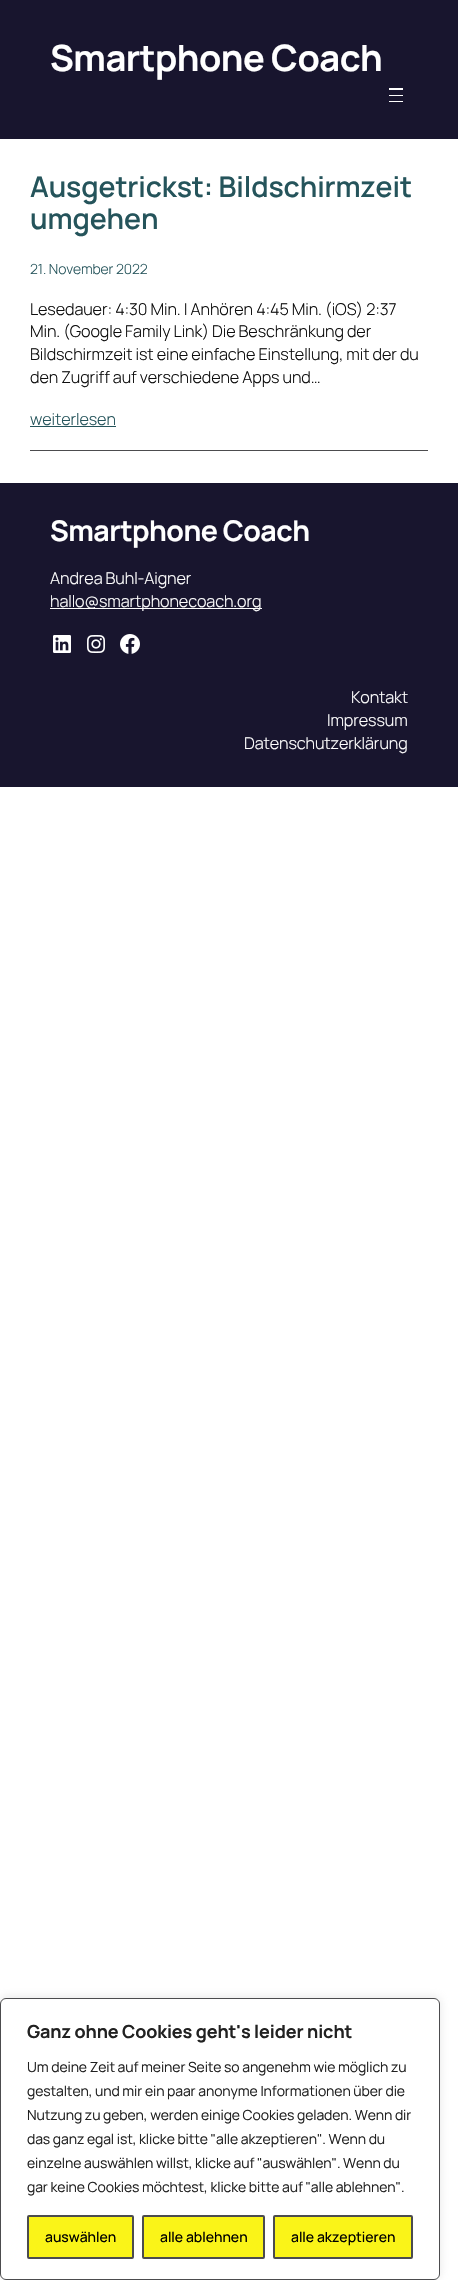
void draw(SkCanvas* canvas) {
	SkPaint paint;
	paint.setAntiAlias(true);
	auto spacedText = [&](const char* s, float x, float y, const SkFont& font, const SkPaint& ink, float letter, float word) {
		std::vector<SkGlyphID> glyphs(font.countText(s, strlen(s), SkTextEncoding::kUTF8));
		std::vector<float> xs(glyphs.size());
		font.textToGlyphs(s, strlen(s), SkTextEncoding::kUTF8, glyphs);
		font.getXPos(glyphs, xs, x);
		float extra = 0;
		for (size_t i = 0; i < glyphs.size(); i++) {
			xs[i] += extra;
			extra += letter + word * (glyphs[i] == font.unicharToGlyph(' '));
		}
		canvas->drawTextBlob(SkTextBlob::MakeFromPosHGlyphs(glyphs, xs, y, font), 0, 0, ink);
	};
	canvas->clear(0xffffffff);
	paint.setColor(0xff18152e);
	canvas->drawRect(SkRect::MakeXYWH(0, 0, 458, 139), paint);
	SkFont f1(fontMgr->matchFamilyStyle("Manrope", SkFontStyle::Bold()), 36.25);
	f1.setSubpixel(true);
	paint.setColor(0xffffffff);
	spacedText("Smartphone Coach", 50, 71, f1, paint, -0.5, 0);
	canvas->drawRect(SkRect::MakeXYWH(389, 88, 14, 2), paint);
	canvas->drawRect(SkRect::MakeXYWH(389, 95, 14, 1), paint);
	canvas->drawRect(SkRect::MakeXYWH(389, 101, 14, 1), paint);
	SkFont f2(fontMgr->matchFamilyStyle("Manrope", SkFontStyle(600, SkFontStyle::kNormal_Width, SkFontStyle::kUpright_Slant)), 28.5);
	f2.setSubpixel(true);
	paint.setColor(0xff25545b);
	spacedText("Ausgetrickst: Bildschirmzeit", 30, 197, f2, paint, -0.1, 0);
	spacedText("umgehen", 30, 229, f2, paint, -0.1, 0);
	SkFont f3(fontMgr->matchFamilyStyle("Manrope", SkFontStyle(300, SkFontStyle::kNormal_Width, SkFontStyle::kUpright_Slant)), 14);
	f3.setSubpixel(true);
	spacedText("21. November 2022", 30, 274, f3, paint, -0.1, 0);
	SkFont f4(fontMgr->matchFamilyStyle("Manrope", SkFontStyle(300, SkFontStyle::kNormal_Width, SkFontStyle::kUpright_Slant)), 16.25);
	f4.setSubpixel(true);
	paint.setColor(0xff0e0e0e);
	spacedText("Lesedauer: 4:30 Min. | Anhören 4:45 Min. (iOS) 2:37", 30, 315, f4, paint, -0.1, 0);
	spacedText("Min. (Google Family Link) Die Beschränkung der", 30, 337, f4, paint, -0.1, 0);
	spacedText("Bildschirmzeit ist eine einfache Einstellung, mit der du", 30, 360, f4, paint, -0.1, 0);
	spacedText("den Zugriff auf verschiedene Apps und…", 30, 383, f4, paint, -0.1, 0);
	paint.setColor(0xff25545b);
	spacedText("weiterlesen", 30, 425, f4, paint, -0.1, 0);
	canvas->drawRect(SkRect::MakeXYWH(30, 426, 86, 1), paint);
	paint.setColor(0xff4c4c4e);
	canvas->drawRect(SkRect::MakeXYWH(30, 450, 398, 1), paint);
	paint.setColor(0xff18152e);
	canvas->drawRect(SkRect::MakeXYWH(0, 483, 458, 304), paint);
	SkFont f5(fontMgr->matchFamilyStyle("Manrope", SkFontStyle::Bold()), 28.5);
	f5.setSubpixel(true);
	paint.setColor(0xffffffff);
	spacedText("Smartphone Coach", 50, 541, f5, paint, -0.5, 0);
	spacedText("Andrea Buhl-Aigner", 50, 584, f4, paint, -0.1, 0);
	canvas->drawRect(SkRect::MakeXYWH(50, 608, 212, 1), paint);
	spacedText("hallo@smartphonecoach.org", 50, 607, f4, paint, -0.1, 0);
	canvas->drawImageRect(SkImages::DeferredFromEncodedData(SkData::MakeFromFileName("img1.png")), SkRect::MakeXYWH(53, 635, 18, 18), SkSamplingOptions());
	canvas->drawImageRect(SkImages::DeferredFromEncodedData(SkData::MakeFromFileName("img2.png")), SkRect::MakeXYWH(87, 635, 18, 18), SkSamplingOptions());
	canvas->drawImageRect(SkImages::DeferredFromEncodedData(SkData::MakeFromFileName("img3.png")), SkRect::MakeXYWH(120, 634, 20, 20), SkSamplingOptions());
	spacedText("Kontakt", 351, 703, f4, paint, -0.1, 0);
	spacedText("Impressum", 327, 726, f4, paint, -0.1, 0);
	spacedText("Datenschutzerklärung", 244, 749, f4, paint, -0.1, 0);
	paint.setColor(0x4dacabab);
	paint.setMaskFilter(SkMaskFilter::MakeBlur(kNormal_SkBlurStyle, 5));
	canvas->drawRoundRect(SkRect::MakeXYWH(0, 1997, 440, 282), 6, 6, paint);
	paint.setMaskFilter(nullptr);
	paint.setColor(0xffffffff);
	canvas->drawRoundRect(SkRect::MakeXYWH(0.5, 1998.5, 439, 281), 5.5, 5.5, paint);
	paint.setStroke(true);
	paint.setStrokeWidth(1);
	paint.setColor(0xff4c4c4e);
	canvas->drawRoundRect(SkRect::MakeXYWH(0.5, 1998.5, 439, 281), 5.5, 5.5, paint);
	SkFont f6(fontMgr->matchFamilyStyle("Manrope", SkFontStyle::Bold()), 18);
	f6.setSubpixel(true);
	paint.setStroke(false);
	paint.setColor(0xff212121);
	spacedText("Ganz ohne Cookies geht's leider nicht", 27, 2038, f6, paint, -0.1, 0);
	SkFont f7(fontMgr->matchFamilyStyle("Manrope", SkFontStyle::Normal()), 14);
	f7.setSubpixel(true);
	spacedText("Um deine Zeit auf meiner Seite so angenehm wie möglich zu", 27, 2072, f7, paint, -0.1, 0);
	spacedText("gestalten, und mir ein paar anonyme Informationen über die", 27, 2096, f7, paint, -0.1, 0);
	spacedText("Nutzung zu geben, werden einige Cookies geladen. Wenn dir", 27, 2120, f7, paint, -0.1, 0);
	spacedText("das ganz egal ist, klicke bitte \"alle akzeptieren\". Wenn du", 27, 2144, f7, paint, -0.1, 0);
	spacedText("einzelne auswählen willst, klicke auf \"auswählen\". Wenn du", 27, 2168, f7, paint, -0.1, 0);
	spacedText("gar keine Cookies möchtest, klicke bitte auf \"alle ablehnen\".", 27, 2192, f7, paint, -0.1, 0);
	paint.setColor(0xfffaf418);
	canvas->drawRoundRect(SkRect::MakeXYWH(28, 2216, 105, 42), 1, 1, paint);
	paint.setStroke(true);
	paint.setStrokeWidth(2);
	paint.setColor(0xff4c4c4e);
	canvas->drawRoundRect(SkRect::MakeXYWH(28, 2216, 105, 42), 1, 1, paint);
	SkFont f8(fontMgr->matchFamilyStyle("Manrope", SkFontStyle(500, SkFontStyle::kNormal_Width, SkFontStyle::kUpright_Slant)), 14);
	f8.setSubpixel(true);
	paint.setStroke(false);
	paint.setColor(0xff000000);
	canvas->drawString("auswählen", 45, 2242, f8, paint);
	paint.setColor(0xfffaf418);
	canvas->drawRoundRect(SkRect::MakeXYWH(143, 2216, 121, 42), 1, 1, paint);
	paint.setStroke(true);
	paint.setColor(0xff4c4c4e);
	canvas->drawRoundRect(SkRect::MakeXYWH(143, 2216, 121, 42), 1, 1, paint);
	paint.setStroke(false);
	paint.setColor(0xff000000);
	canvas->drawString("alle ablehnen", 160, 2242, f8, paint);
	paint.setColor(0xfffaf418);
	canvas->drawRoundRect(SkRect::MakeXYWH(274, 2216, 138, 42), 1, 1, paint);
	paint.setStroke(true);
	paint.setColor(0xff4c4c4e);
	canvas->drawRoundRect(SkRect::MakeXYWH(274, 2216, 138, 42), 1, 1, paint);
	paint.setStroke(false);
	paint.setColor(0xff000000);
	canvas->drawString("alle akzeptieren", 291, 2242, f8, paint);
}
